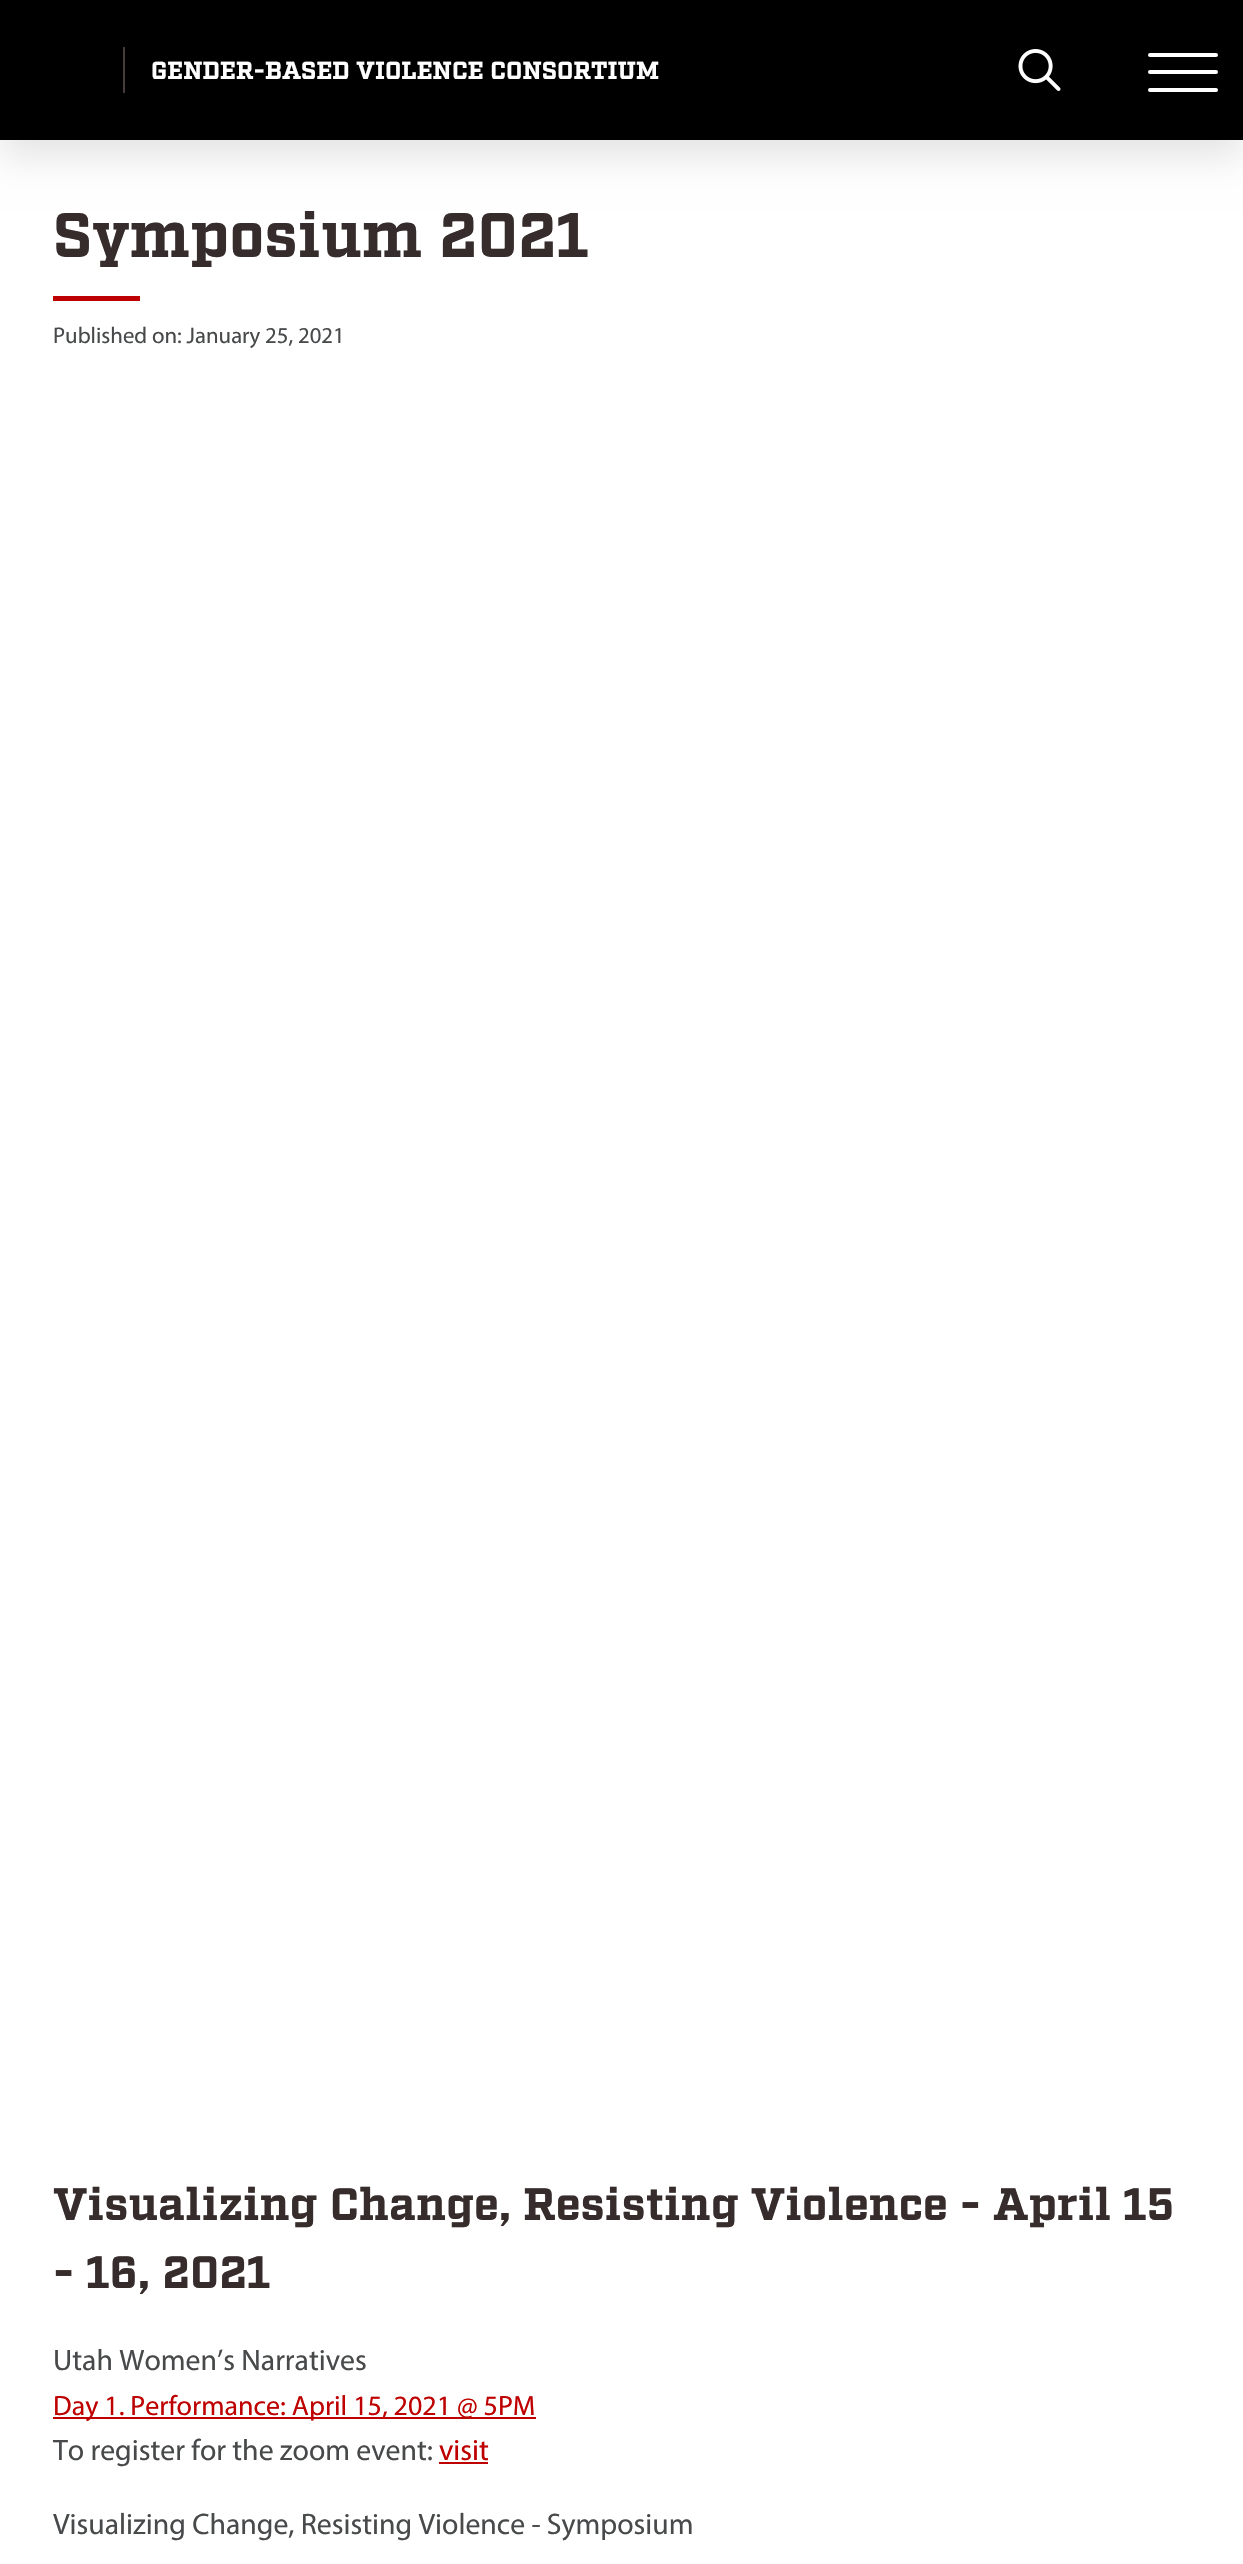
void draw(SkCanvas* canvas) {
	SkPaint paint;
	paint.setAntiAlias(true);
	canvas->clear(0xffffffff);
	paint.setColor(0x1a000000);
	paint.setMaskFilter(SkMaskFilter::MakeBlur(kNormal_SkBlurStyle, 17.5));
	canvas->drawRect(SkRect::MakeXYWH(0, 18, 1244, 140), paint);
	paint.setMaskFilter(nullptr);
	paint.setColor(0xff000000);
	canvas->drawRect(SkRect::MakeXYWH(0, 0, 1243, 140), paint);
	paint.setColor(0xff463c3c);
	canvas->drawRect(SkRect::MakeXYWH(123, 47, 2, 46), paint);
	SkFont f1(fontMgr->matchFamilyStyle("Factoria", SkFontStyle::Bold()), 24.5);
	f1.setSubpixel(true);
	paint.setColor(0xffffffff);
	canvas->drawString("GENDER-BASED VIOLENCE CONSORTIUM", 151, 79, f1, paint);
	canvas->drawImageRect(SkImages::DeferredFromEncodedData(SkData::MakeFromFileName("img1.png")), SkRect::MakeXYWH(1018, 49, 43, 42), SkSamplingOptions());
	canvas->drawRoundRect(SkRect::MakeXYWH(1148, 53, 70, 4), 2, 2, paint);
	canvas->drawRoundRect(SkRect::MakeXYWH(1148, 70, 70, 4), 2, 2, paint);
	canvas->drawRoundRect(SkRect::MakeXYWH(1148, 88, 70, 4), 2, 2, paint);
	SkFont f2(fontMgr->matchFamilyStyle("Factoria", SkFontStyle::Bold()), 63);
	f2.setSubpixel(true);
	paint.setColor(0xff372c2c);
	canvas->drawString("Symposium 2021", 53, 257, f2, paint);
	paint.setColor(0xffbe0000);
	canvas->drawRect(SkRect::MakeXYWH(53, 296, 87, 5), paint);
	SkFont f3(fontMgr->matchFamilyStyle("Myriad", SkFontStyle::Normal()), 22.75);
	f3.setSubpixel(true);
	paint.setColor(0xff47494a);
	canvas->drawString("Published on: January 25, 2021", 53, 343, f3, paint);
	SkFont f4(fontMgr->matchFamilyStyle("Factoria", SkFontStyle::Bold()), 45.5);
	f4.setSubpixel(true);
	paint.setColor(0xff372c2c);
	canvas->drawString("Visualizing Change, Resisting Violence - April 15", 53, 2220, f4, paint);
	canvas->drawString("- 16, 2021", 53, 2288, f4, paint);
	SkFont f5(fontMgr->matchFamilyStyle("Myriad", SkFontStyle::Normal()), 29.75);
	f5.setSubpixel(true);
	paint.setColor(0xff47494a);
	canvas->drawString("Utah Women’s Narratives", 53, 2370, f5, paint);
	paint.setColor(0xffbe0000);
	canvas->drawRect(SkRect::MakeXYWH(53, 2417, 483, 2), paint);
	SkFont f6(fontMgr->matchFamilyStyle("Myriad", SkFontStyle::Normal()), 28);
	f6.setSubpixel(true);
	canvas->drawString("Day 1. Performance: April 15, 2021 @ 5PM", 53, 2415, f6, paint);
	paint.setColor(0xff47494a);
	canvas->drawString("To register for the zoom event:", 53, 2460, f5, paint);
	paint.setColor(0xffbe0000);
	canvas->drawString("visit", 439, 2460, f5, paint);
	canvas->drawRect(SkRect::MakeXYWH(439, 2462, 49, 2), paint);
	paint.setColor(0xff47494a);
	canvas->drawString("Visualizing Change, Resisting Violence - Symposium", 53, 2534, f5, paint);
}
